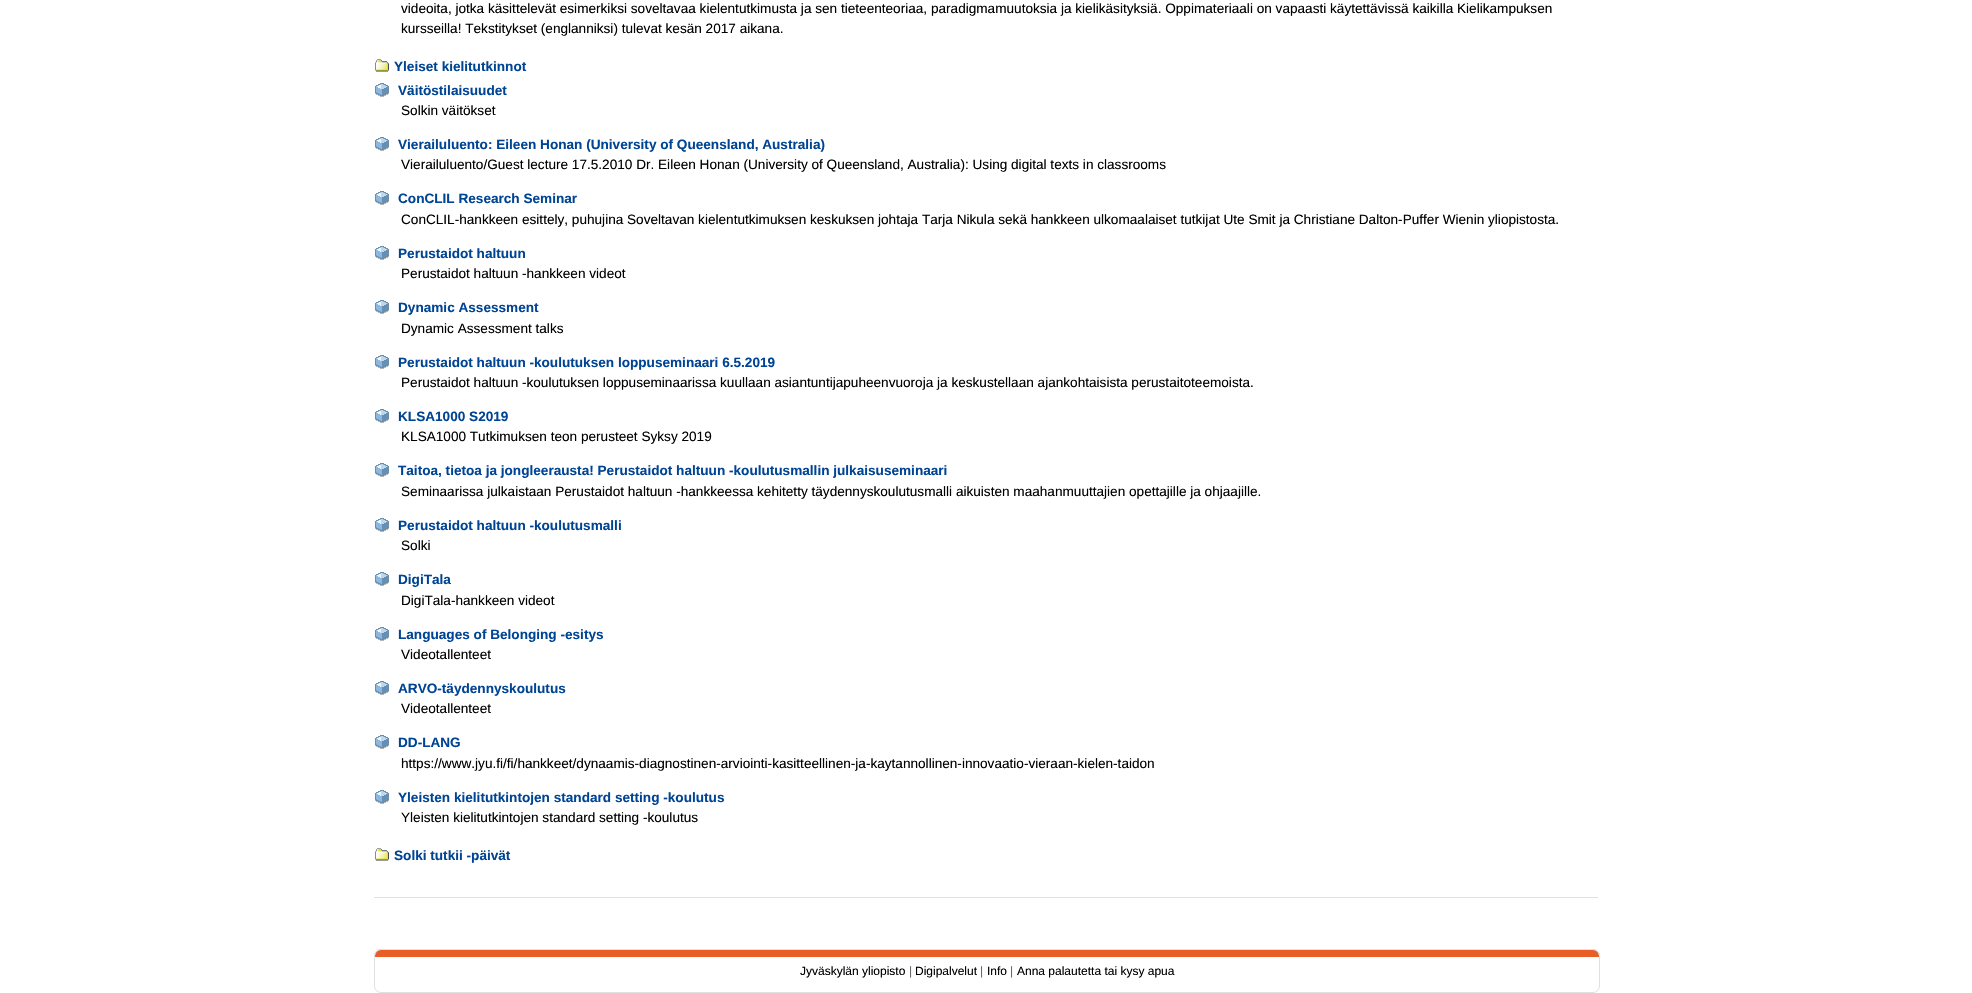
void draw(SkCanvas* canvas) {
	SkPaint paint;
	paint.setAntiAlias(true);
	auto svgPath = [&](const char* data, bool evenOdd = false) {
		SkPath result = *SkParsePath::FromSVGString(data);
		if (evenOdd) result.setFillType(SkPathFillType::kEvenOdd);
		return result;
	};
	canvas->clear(0xffffffff);
	SkFont f1(fontMgr->matchFamilyStyle("Liberation Sans", SkFontStyle::Normal()), 13.6);
	f1.setSubpixel(true);
	paint.setColor(0xff000000);
	canvas->drawString("videoita, jotka käsittelevät esimerkiksi soveltavaa kielentutkimusta ja sen tieteenteoriaa, paradigmamuutoksia ja kielikäsityksiä. Oppimateriaali on vapaasti käytettävissä kaikilla Kielikampuksen", 401, 13, f1, paint);
	canvas->drawString("kursseilla! Tekstitykset (englanniksi) tulevat kesän 2017 aikana.", 401, 33, f1, paint);
	canvas->drawImageRect(SkImages::DeferredFromEncodedData(SkData::MakeFromFileName("img1.png")), SkRect::MakeXYWH(375, 59, 14, 13), SkSamplingOptions());
	SkFont f2(fontMgr->matchFamilyStyle("Liberation Sans", SkFontStyle::Bold()), 13.6);
	f2.setSubpixel(true);
	paint.setColor(0xff004494);
	canvas->drawString("Yleiset kielitutkinnot", 394, 71, f2, paint);
	canvas->drawImageRect(SkImages::DeferredFromEncodedData(SkData::MakeFromFileName("img2.png")), SkRect::MakeXYWH(375, 83, 14, 14), SkSamplingOptions());
	canvas->drawString("Väitöstilaisuudet", 398, 95, f2, paint);
	paint.setColor(0xff000000);
	canvas->drawString("Solkin väitökset", 401, 115, f1, paint);
	canvas->drawImageRect(SkImages::DeferredFromEncodedData(SkData::MakeFromFileName("img2.png")), SkRect::MakeXYWH(375, 137, 14, 14), SkSamplingOptions());
	paint.setColor(0xff004494);
	canvas->drawString("Vierailuluento: Eileen Honan (University of Queensland, Australia)", 398, 149, f2, paint);
	paint.setColor(0xff000000);
	canvas->drawString("Vierailuluento/Guest lecture 17.5.2010 Dr. Eileen Honan (University of Queensland, Australia): Using digital texts in classrooms", 401, 169, f1, paint);
	canvas->drawImageRect(SkImages::DeferredFromEncodedData(SkData::MakeFromFileName("img2.png")), SkRect::MakeXYWH(375, 191, 14, 14), SkSamplingOptions());
	paint.setColor(0xff004494);
	canvas->drawString("ConCLIL Research Seminar", 398, 203, f2, paint);
	paint.setColor(0xff000000);
	canvas->drawString("ConCLIL-hankkeen esittely, puhujina Soveltavan kielentutkimuksen keskuksen johtaja Tarja Nikula sekä hankkeen ulkomaalaiset tutkijat Ute Smit ja Christiane Dalton-Puffer Wienin yliopistosta.", 401, 224, f1, paint);
	canvas->drawImageRect(SkImages::DeferredFromEncodedData(SkData::MakeFromFileName("img2.png")), SkRect::MakeXYWH(375, 246, 14, 14), SkSamplingOptions());
	paint.setColor(0xff004494);
	canvas->drawString("Perustaidot haltuun", 398, 258, f2, paint);
	paint.setColor(0xff000000);
	canvas->drawString("Perustaidot haltuun -hankkeen videot", 401, 278, f1, paint);
	canvas->drawImageRect(SkImages::DeferredFromEncodedData(SkData::MakeFromFileName("img2.png")), SkRect::MakeXYWH(375, 300, 14, 14), SkSamplingOptions());
	paint.setColor(0xff004494);
	canvas->drawString("Dynamic Assessment", 398, 312, f2, paint);
	paint.setColor(0xff000000);
	canvas->drawString("Dynamic Assessment talks", 401, 333, f1, paint);
	canvas->drawImageRect(SkImages::DeferredFromEncodedData(SkData::MakeFromFileName("img2.png")), SkRect::MakeXYWH(375, 355, 14, 14), SkSamplingOptions());
	paint.setColor(0xff004494);
	canvas->drawString("Perustaidot haltuun -koulutuksen loppuseminaari 6.5.2019", 398, 367, f2, paint);
	paint.setColor(0xff000000);
	canvas->drawString("Perustaidot haltuun -koulutuksen loppuseminaarissa kuullaan asiantuntijapuheenvuoroja ja keskustellaan ajankohtaisista perustaitoteemoista.", 401, 387, f1, paint);
	canvas->drawImageRect(SkImages::DeferredFromEncodedData(SkData::MakeFromFileName("img2.png")), SkRect::MakeXYWH(375, 409, 14, 14), SkSamplingOptions());
	paint.setColor(0xff004494);
	canvas->drawString("KLSA1000 S2019", 398, 421, f2, paint);
	paint.setColor(0xff000000);
	canvas->drawString("KLSA1000 Tutkimuksen teon perusteet Syksy 2019", 401, 441, f1, paint);
	canvas->drawImageRect(SkImages::DeferredFromEncodedData(SkData::MakeFromFileName("img2.png")), SkRect::MakeXYWH(375, 463, 14, 14), SkSamplingOptions());
	paint.setColor(0xff004494);
	canvas->drawString("Taitoa, tietoa ja jongleerausta! Perustaidot haltuun -koulutusmallin julkaisuseminaari", 398, 475, f2, paint);
	paint.setColor(0xff000000);
	canvas->drawString("Seminaarissa julkaistaan Perustaidot haltuun -hankkeessa kehitetty täydennyskoulutusmalli aikuisten maahanmuuttajien opettajille ja ohjaajille.", 401, 496, f1, paint);
	canvas->drawImageRect(SkImages::DeferredFromEncodedData(SkData::MakeFromFileName("img2.png")), SkRect::MakeXYWH(375, 518, 14, 14), SkSamplingOptions());
	paint.setColor(0xff004494);
	canvas->drawString("Perustaidot haltuun -koulutusmalli", 398, 530, f2, paint);
	paint.setColor(0xff000000);
	canvas->drawString("Solki", 401, 550, f1, paint);
	canvas->drawImageRect(SkImages::DeferredFromEncodedData(SkData::MakeFromFileName("img2.png")), SkRect::MakeXYWH(375, 572, 14, 14), SkSamplingOptions());
	paint.setColor(0xff004494);
	canvas->drawString("DigiTala", 398, 584, f2, paint);
	paint.setColor(0xff000000);
	canvas->drawString("DigiTala-hankkeen videot", 401, 605, f1, paint);
	canvas->drawImageRect(SkImages::DeferredFromEncodedData(SkData::MakeFromFileName("img2.png")), SkRect::MakeXYWH(375, 627, 14, 14), SkSamplingOptions());
	paint.setColor(0xff004494);
	canvas->drawString("Languages of Belonging -esitys", 398, 639, f2, paint);
	paint.setColor(0xff000000);
	canvas->drawString("Videotallenteet", 401, 659, f1, paint);
	canvas->drawImageRect(SkImages::DeferredFromEncodedData(SkData::MakeFromFileName("img2.png")), SkRect::MakeXYWH(375, 681, 14, 14), SkSamplingOptions());
	paint.setColor(0xff004494);
	canvas->drawString("ARVO-täydennyskoulutus", 398, 693, f2, paint);
	paint.setColor(0xff000000);
	canvas->drawString("Videotallenteet", 401, 713, f1, paint);
	canvas->drawImageRect(SkImages::DeferredFromEncodedData(SkData::MakeFromFileName("img2.png")), SkRect::MakeXYWH(375, 735, 14, 14), SkSamplingOptions());
	paint.setColor(0xff004494);
	canvas->drawString("DD-LANG", 398, 747, f2, paint);
	paint.setColor(0xff000000);
	canvas->drawString("https://www.jyu.fi/fi/hankkeet/dynaamis-diagnostinen-arviointi-kasitteellinen-ja-kaytannollinen-innovaatio-vieraan-kielen-taidon", 401, 768, f1, paint);
	canvas->drawImageRect(SkImages::DeferredFromEncodedData(SkData::MakeFromFileName("img2.png")), SkRect::MakeXYWH(375, 790, 14, 14), SkSamplingOptions());
	paint.setColor(0xff004494);
	canvas->drawString("Yleisten kielitutkintojen standard setting -koulutus", 398, 802, f2, paint);
	paint.setColor(0xff000000);
	canvas->drawString("Yleisten kielitutkintojen standard setting -koulutus", 401, 822, f1, paint);
	canvas->drawImageRect(SkImages::DeferredFromEncodedData(SkData::MakeFromFileName("img1.png")), SkRect::MakeXYWH(375, 848, 14, 13), SkSamplingOptions());
	paint.setColor(0xff004494);
	canvas->drawString("Solki tutkii -päivät", 394, 860, f2, paint);
	paint.setColor(0xffe0e0e0);
	canvas->drawRect(SkRect::MakeXYWH(374, 897, 1224, 1), paint);
	paint.setStroke(true);
	paint.setStrokeWidth(1);
	canvas->drawRoundRect(SkRect::MakeXYWH(374.5, 949.5, 1225, 43), 6.5, 6.5, paint);
	paint.setStroke(false);
	paint.setColor(0xffe95e27);
	canvas->drawPath(svgPath("M381 950H1593C1596.5 950 1599 952.5 1599 956V957H375V956C375 952.5 377.5 950 381 950Z"), paint);
	paint.setColor(0xffe0e0e0);
	canvas->drawPath(svgPath("M381 949H1593C1598 949 1600 953 1600 957H374C374 953 376 949 381 949ZM381 950H1593C1597 950 1599 953 1599 957H375C375 953 377 950 381 950Z", true), paint);
	SkFont f3(fontMgr->matchFamilyStyle("Liberation Sans", SkFontStyle::Normal()), 12);
	f3.setSubpixel(true);
	paint.setColor(0xff000000);
	canvas->drawString("Jyväskylän yliopisto", 800, 975, f3, paint);
	paint.setColor(0xff646464);
	canvas->drawString("|", 909, 975, f3, paint);
	paint.setColor(0xff000000);
	canvas->drawString("Digipalvelut", 915, 975, f3, paint);
	paint.setColor(0xff646464);
	canvas->drawString("|", 980, 975, f3, paint);
	paint.setColor(0xff000000);
	canvas->drawString("Info", 987, 975, f3, paint);
	paint.setColor(0xff646464);
	canvas->drawString("|", 1010, 975, f3, paint);
	paint.setColor(0xff000000);
	canvas->drawString("Anna palautetta tai kysy apua", 1017, 975, f3, paint);
}
